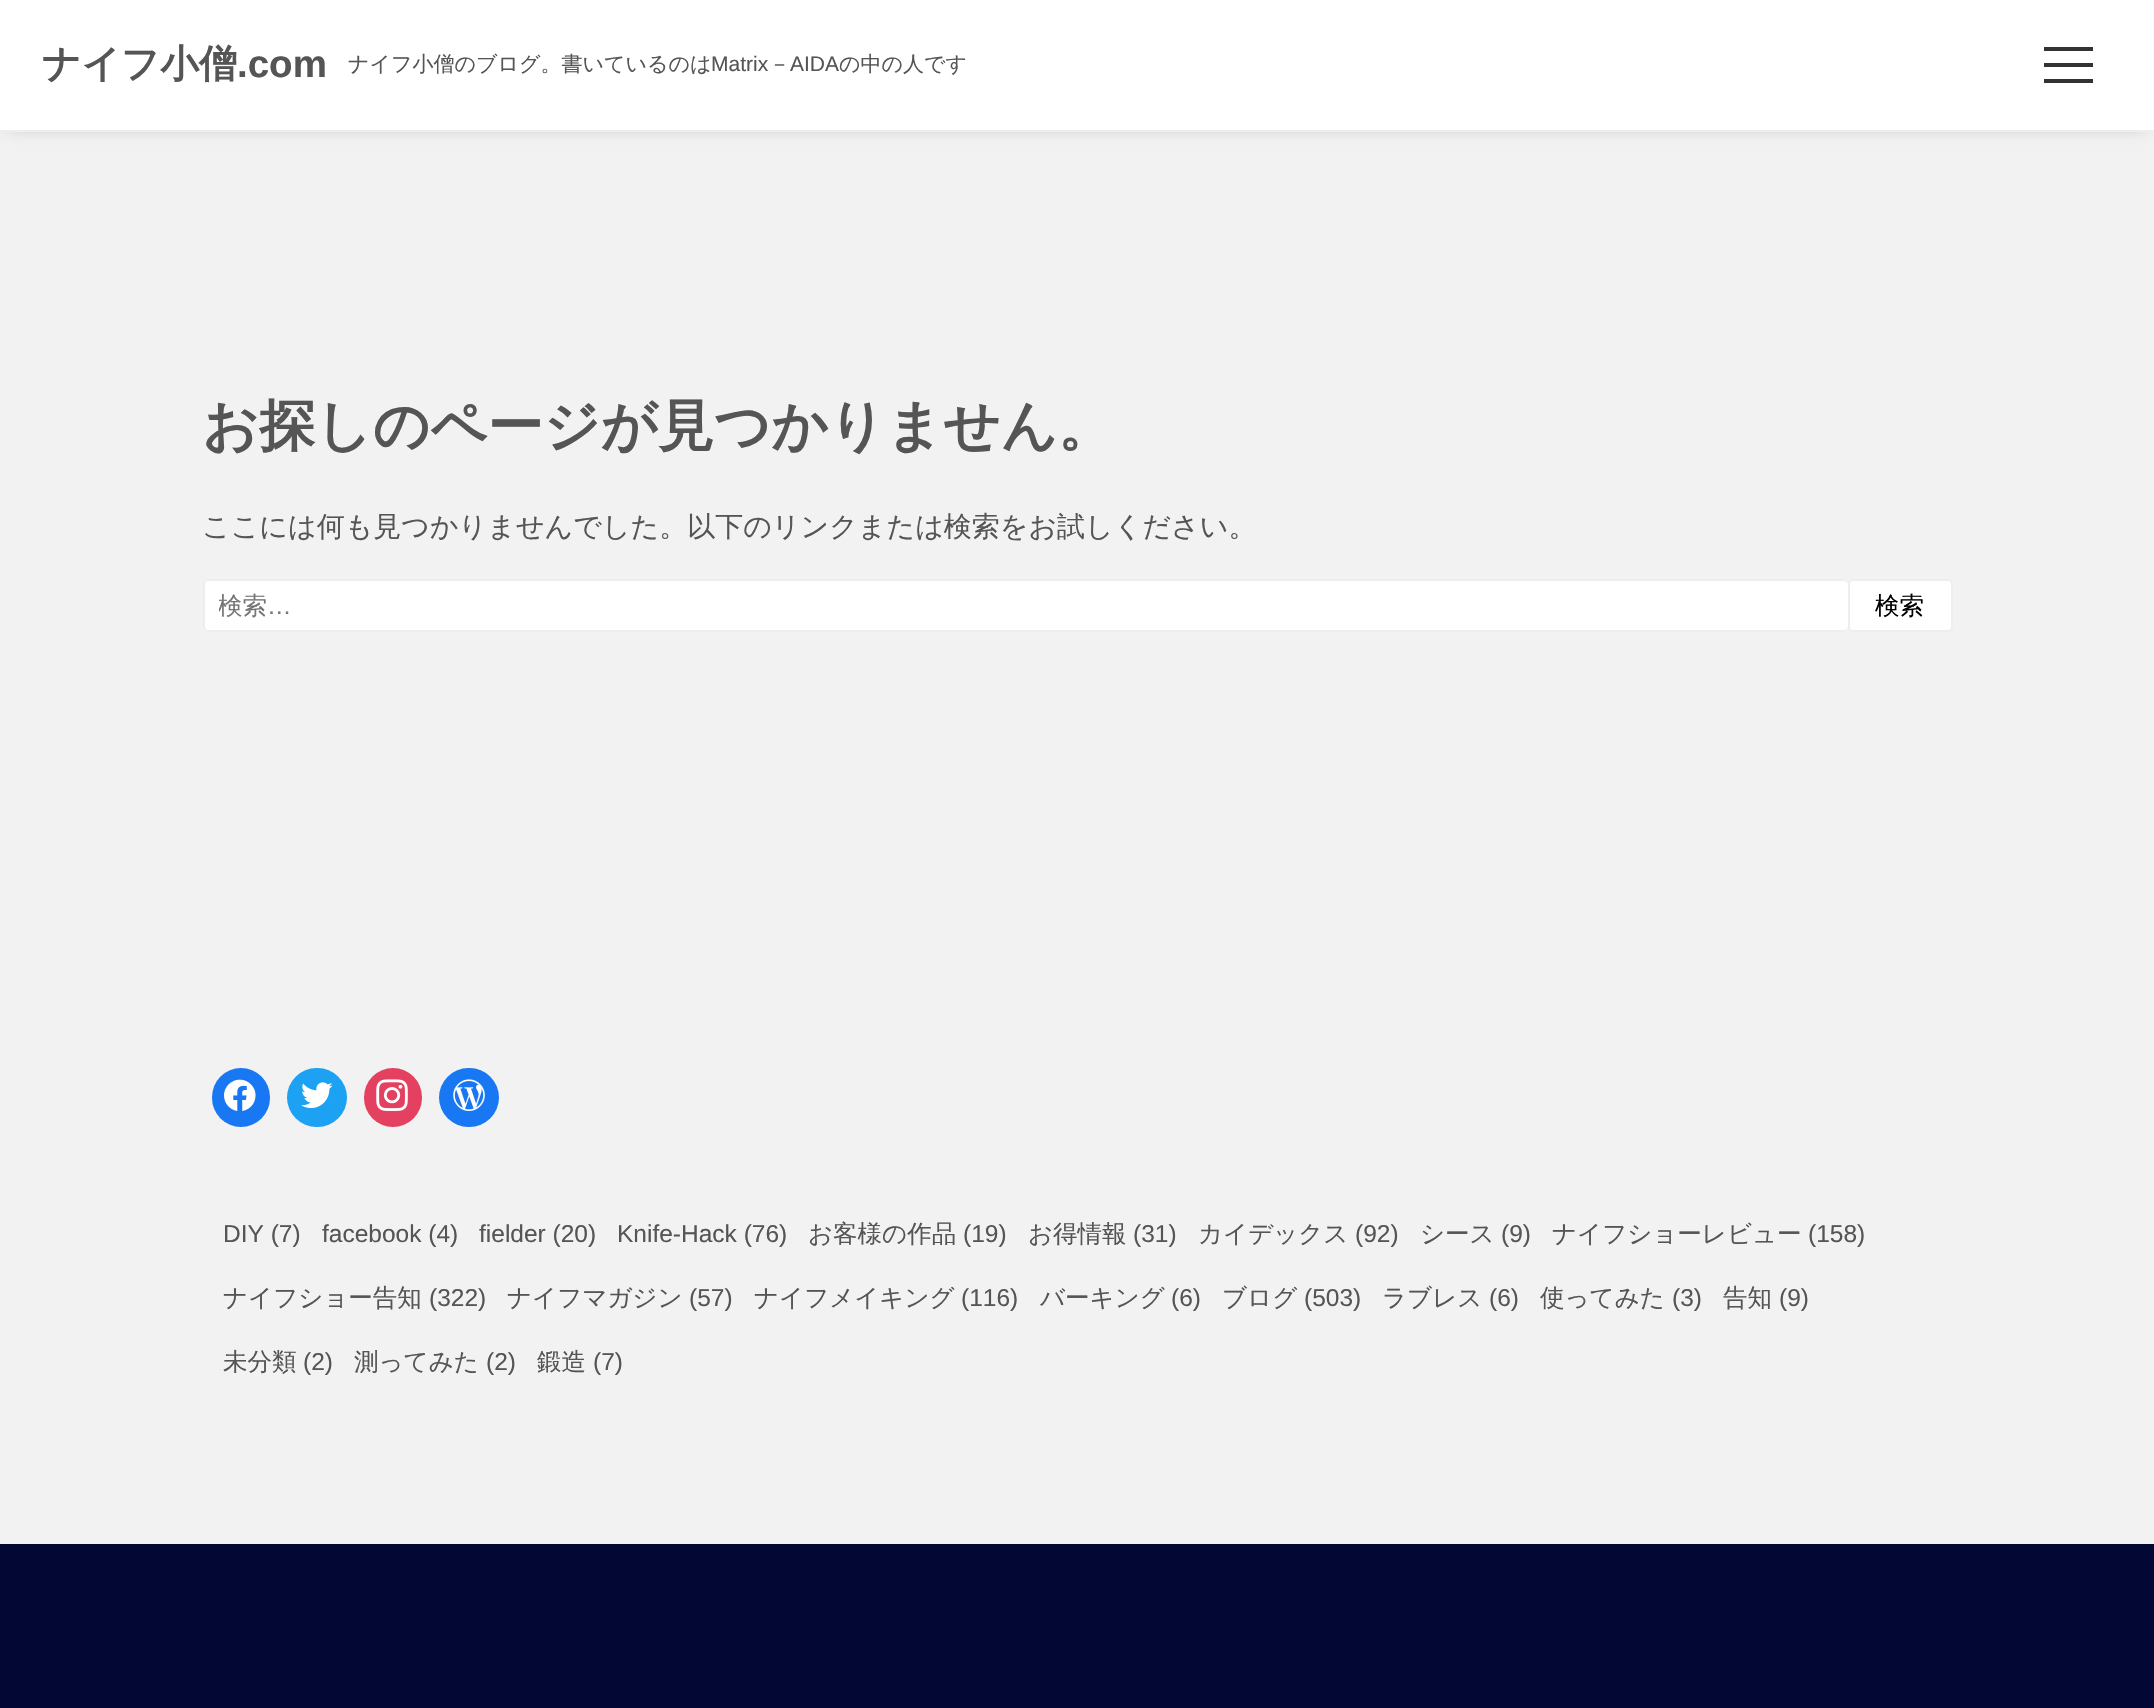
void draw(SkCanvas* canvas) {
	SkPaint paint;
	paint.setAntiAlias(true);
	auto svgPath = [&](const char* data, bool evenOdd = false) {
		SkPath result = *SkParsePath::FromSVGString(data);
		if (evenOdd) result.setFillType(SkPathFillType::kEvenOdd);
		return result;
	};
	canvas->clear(0xfff2f2f2);
	paint.setColor(0x66000000);
	paint.setMaskFilter(SkMaskFilter::MakeBlur(kNormal_SkBlurStyle, 9));
	canvas->drawRect(SkRect::MakeXYWH(9, 9, 2137, 114), paint);
	paint.setMaskFilter(nullptr);
	paint.setColor(0xffffffff);
	canvas->drawRect(SkRect::MakeXYWH(0, 0, 2154, 130), paint);
	paint.setColor(0xffeeeeee);
	canvas->drawRect(SkRect::MakeXYWH(0, 130, 2154, 2), paint);
	SkFont f1(fontMgr->matchFamilyStyle("WenQuanYi Zen Hei", SkFontStyle::Bold()), 38.5);
	f1.setSubpixel(true);
	paint.setColor(0xff555555);
	canvas->drawString("ナイフ小僧", 42, 77, f1, paint);
	SkFont f2(fontMgr->matchFamilyStyle("Liberation Sans", SkFontStyle::Bold()), 38.5);
	f2.setSubpixel(true);
	canvas->drawString(".com", 237, 77, f2, paint);
	SkFont f3(fontMgr->matchFamilyStyle("WenQuanYi Zen Hei", SkFontStyle(500, SkFontStyle::kNormal_Width, SkFontStyle::kUpright_Slant)), 21);
	f3.setSubpixel(true);
	canvas->drawString("ナイフ小僧のブログ。書いているのは", 348, 71, f3, paint);
	SkFont f4(fontMgr->matchFamilyStyle("Liberation Sans", SkFontStyle::Normal()), 21);
	f4.setSubpixel(true);
	canvas->drawString("Matrix", 711, 71, f4, paint);
	canvas->drawString("－", 769, 71, f3, paint);
	canvas->drawString("AIDA", 790, 71, f4, paint);
	canvas->drawString("の中の人です", 839, 71, f3, paint);
	paint.setColor(0xff333333);
	canvas->drawRect(SkRect::MakeXYWH(2044, 63, 49, 4), paint);
	canvas->drawRect(SkRect::MakeXYWH(2044, 47, 49, 4), paint);
	canvas->drawRect(SkRect::MakeXYWH(2044, 79, 49, 4), paint);
	SkFont f5(fontMgr->matchFamilyStyle("WenQuanYi Zen Hei", SkFontStyle::Bold()), 56);
	f5.setSubpixel(true);
	paint.setColor(0xff555555);
	canvas->drawString("お探しのページが見つかりません。", 202, 445, f5, paint);
	SkFont f6(fontMgr->matchFamilyStyle("WenQuanYi Zen Hei", SkFontStyle(500, SkFontStyle::kNormal_Width, SkFontStyle::kUpright_Slant)), 28);
	f6.setSubpixel(true);
	canvas->drawString("ここには何も見つかりませんでした。以下のリンクまたは検索をお試しください。", 202, 536, f6, paint);
	paint.setColor(0xffffffff);
	canvas->drawRoundRect(SkRect::MakeXYWH(203, 579, 1645, 53), 5, 5, paint);
	paint.setColor(0xffeeeeee);
	canvas->drawPath(svgPath("M208 579H1843C1846 579 1848 582 1848 584V626C1848 629 1846 632 1843 632H208C205 632 203 629 203 626V584C203 582 205 579 208 579ZM208 581H1843C1846 581 1848 583 1848 584V626C1848 628 1846 630 1843 630H208C206 630 205 628 205 626V584C205 583 206 581 208 581Z", true), paint);
	canvas->save();
	canvas->clipRect(SkRect::MakeXYWH(219, 592, 1622, 31));
	SkFont f7(fontMgr->matchFamilyStyle("WenQuanYi Zen Hei", SkFontStyle(500, SkFontStyle::kNormal_Width, SkFontStyle::kUpright_Slant)), 24.5);
	f7.setSubpixel(true);
	paint.setColor(0xff757575);
	canvas->drawString("検索", 218, 614, f7, paint);
	canvas->restore();
	SkFont f8(fontMgr->matchFamilyStyle("Liberation Sans", SkFontStyle::Normal()), 24.5);
	f8.setSubpixel(true);
	canvas->drawString("…", 267, 614, f8, paint);
	paint.setColor(0xffffffff);
	canvas->drawRoundRect(SkRect::MakeXYWH(1849, 580, 103, 51), 4, 4, paint);
	paint.setStroke(true);
	paint.setStrokeWidth(2);
	paint.setColor(0xffeeeeee);
	canvas->drawRoundRect(SkRect::MakeXYWH(1849, 580, 103, 51), 4, 4, paint);
	paint.setStroke(false);
	paint.setColor(0xff000000);
	canvas->drawString("検索", 1875, 614, f7, paint);
	paint.setColor(0xff1877f2);
	canvas->drawRoundRect(SkRect::MakeXYWH(212, 1068, 58, 59), 29, 29, paint);
	canvas->drawImageRect(SkImages::DeferredFromEncodedData(SkData::MakeFromFileName("img1.png")), SkRect::MakeXYWH(224, 1079, 32, 32), SkSamplingOptions());
	paint.setColor(0xff1da1f2);
	canvas->drawRoundRect(SkRect::MakeXYWH(287, 1068, 60, 59), 29.5, 29.5, paint);
	canvas->drawImageRect(SkImages::DeferredFromEncodedData(SkData::MakeFromFileName("img2.png")), SkRect::MakeXYWH(301, 1082, 32, 26), SkSamplingOptions());
	paint.setColor(0xffe4405f);
	canvas->drawRoundRect(SkRect::MakeXYWH(364, 1068, 58, 59), 29, 29, paint);
	canvas->drawImageRect(SkImages::DeferredFromEncodedData(SkData::MakeFromFileName("img3.png")), SkRect::MakeXYWH(376, 1079, 32, 32), SkSamplingOptions());
	paint.setColor(0xff1877f2);
	canvas->drawRoundRect(SkRect::MakeXYWH(439, 1068, 60, 59), 29.5, 29.5, paint);
	canvas->drawImageRect(SkImages::DeferredFromEncodedData(SkData::MakeFromFileName("img4.png")), SkRect::MakeXYWH(453, 1079, 32, 32), SkSamplingOptions());
	paint.setColor(0xff555555);
	canvas->drawString("DIY (7)", 223, 1242, f8, paint);
	canvas->drawString("facebook (4)", 322, 1242, f8, paint);
	canvas->drawString("fielder (20)", 479, 1242, f8, paint);
	canvas->drawString("Knife-Hack (76)", 617, 1242, f8, paint);
	canvas->drawString("お客様の作品", 808, 1242, f7, paint);
	canvas->drawString("(19)", 963, 1242, f8, paint);
	canvas->drawString("お得情報", 1028, 1242, f7, paint);
	canvas->drawString("(31)", 1133, 1242, f8, paint);
	canvas->drawString("カイデックス", 1198, 1242, f7, paint);
	canvas->drawString("(92)", 1355, 1242, f8, paint);
	canvas->drawString("シース", 1420, 1242, f7, paint);
	canvas->drawString("(9)", 1501, 1242, f8, paint);
	canvas->drawString("ナイフショーレビュー", 1552, 1242, f7, paint);
	canvas->drawString("(158)", 1808, 1242, f8, paint);
	canvas->drawString("ナイフショー告知", 223, 1306, f7, paint);
	canvas->drawString("(322)", 429, 1306, f8, paint);
	canvas->drawString("ナイフマガジン", 507, 1306, f7, paint);
	canvas->drawString("(57)", 689, 1306, f8, paint);
	canvas->drawString("ナイフメイキング", 754, 1306, f7, paint);
	canvas->drawString("(116)", 961, 1306, f8, paint);
	canvas->drawString("バーキング", 1040, 1306, f7, paint);
	canvas->drawString("(6)", 1171, 1306, f8, paint);
	canvas->drawString("ブログ", 1222, 1306, f7, paint);
	canvas->drawString("(503)", 1304, 1306, f8, paint);
	canvas->drawString("ラブレス", 1382, 1306, f7, paint);
	canvas->drawString("(6)", 1489, 1306, f8, paint);
	canvas->drawString("使ってみた", 1540, 1306, f7, paint);
	canvas->drawString("(3)", 1672, 1306, f8, paint);
	canvas->drawString("告知", 1723, 1306, f7, paint);
	canvas->drawString("(9)", 1779, 1306, f8, paint);
	canvas->drawString("未分類", 223, 1370, f7, paint);
	canvas->drawString("(2)", 303, 1370, f8, paint);
	canvas->drawString("測ってみた", 354, 1370, f7, paint);
	canvas->drawString("(2)", 486, 1370, f8, paint);
	canvas->drawString("鍛造", 537, 1370, f7, paint);
	canvas->drawString("(7)", 593, 1370, f8, paint);
	paint.setColor(0xff020733);
	canvas->drawRect(SkRect::MakeXYWH(0, 1544, 2154, 164), paint);
}
